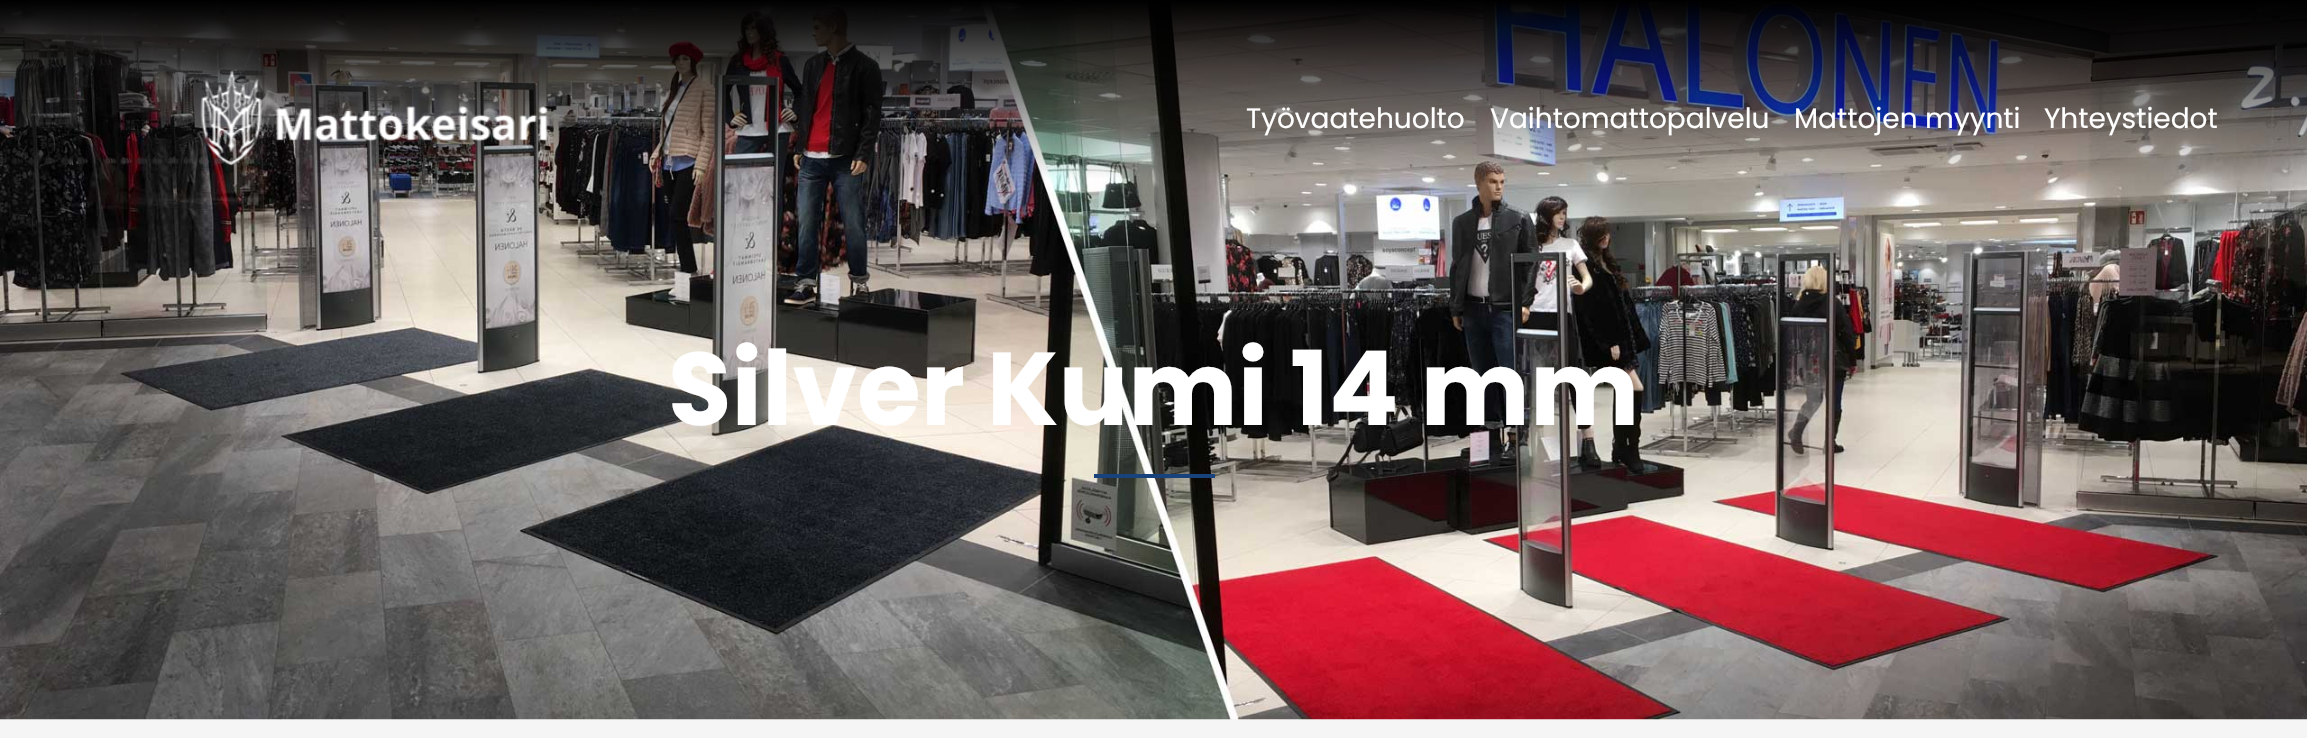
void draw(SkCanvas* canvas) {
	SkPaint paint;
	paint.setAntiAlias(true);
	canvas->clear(0xfff5f5f5);
	canvas->drawImageRect(SkImages::DeferredFromEncodedData(SkData::MakeFromFileName("img2.png")), SkRect::MakeXYWH(0, 0, 2307, 720), SkSamplingOptions());
	canvas->drawImageRect(SkImages::DeferredFromEncodedData(SkData::MakeFromFileName("img1.png")), SkRect::MakeXYWH(200, 70, 349, 96), SkSamplingOptions());
	SkFont f1(fontMgr->matchFamilyStyle("Poppins", SkFontStyle::Normal()), 28);
	f1.setSubpixel(true);
	paint.setColor(0xffffffff);
	canvas->drawString("Työvaatehuolto", 1246, 128, f1, paint);
	canvas->drawString("Vaihtomattopalvelu", 1490, 128, f1, paint);
	canvas->drawString("Mattojen myynti", 1794, 128, f1, paint);
	canvas->drawString("Yhteystiedot", 2044, 128, f1, paint);
	SkFont f2(fontMgr->matchFamilyStyle("Poppins", SkFontStyle::Bold()), 103.25);
	f2.setSubpixel(true);
	canvas->drawString("Silver Kumi 14 mm", 668, 425, f2, paint);
	paint.setColor(0xff18427c);
	canvas->drawRect(SkRect::MakeXYWH(1094, 474, 121, 4), paint);
}
